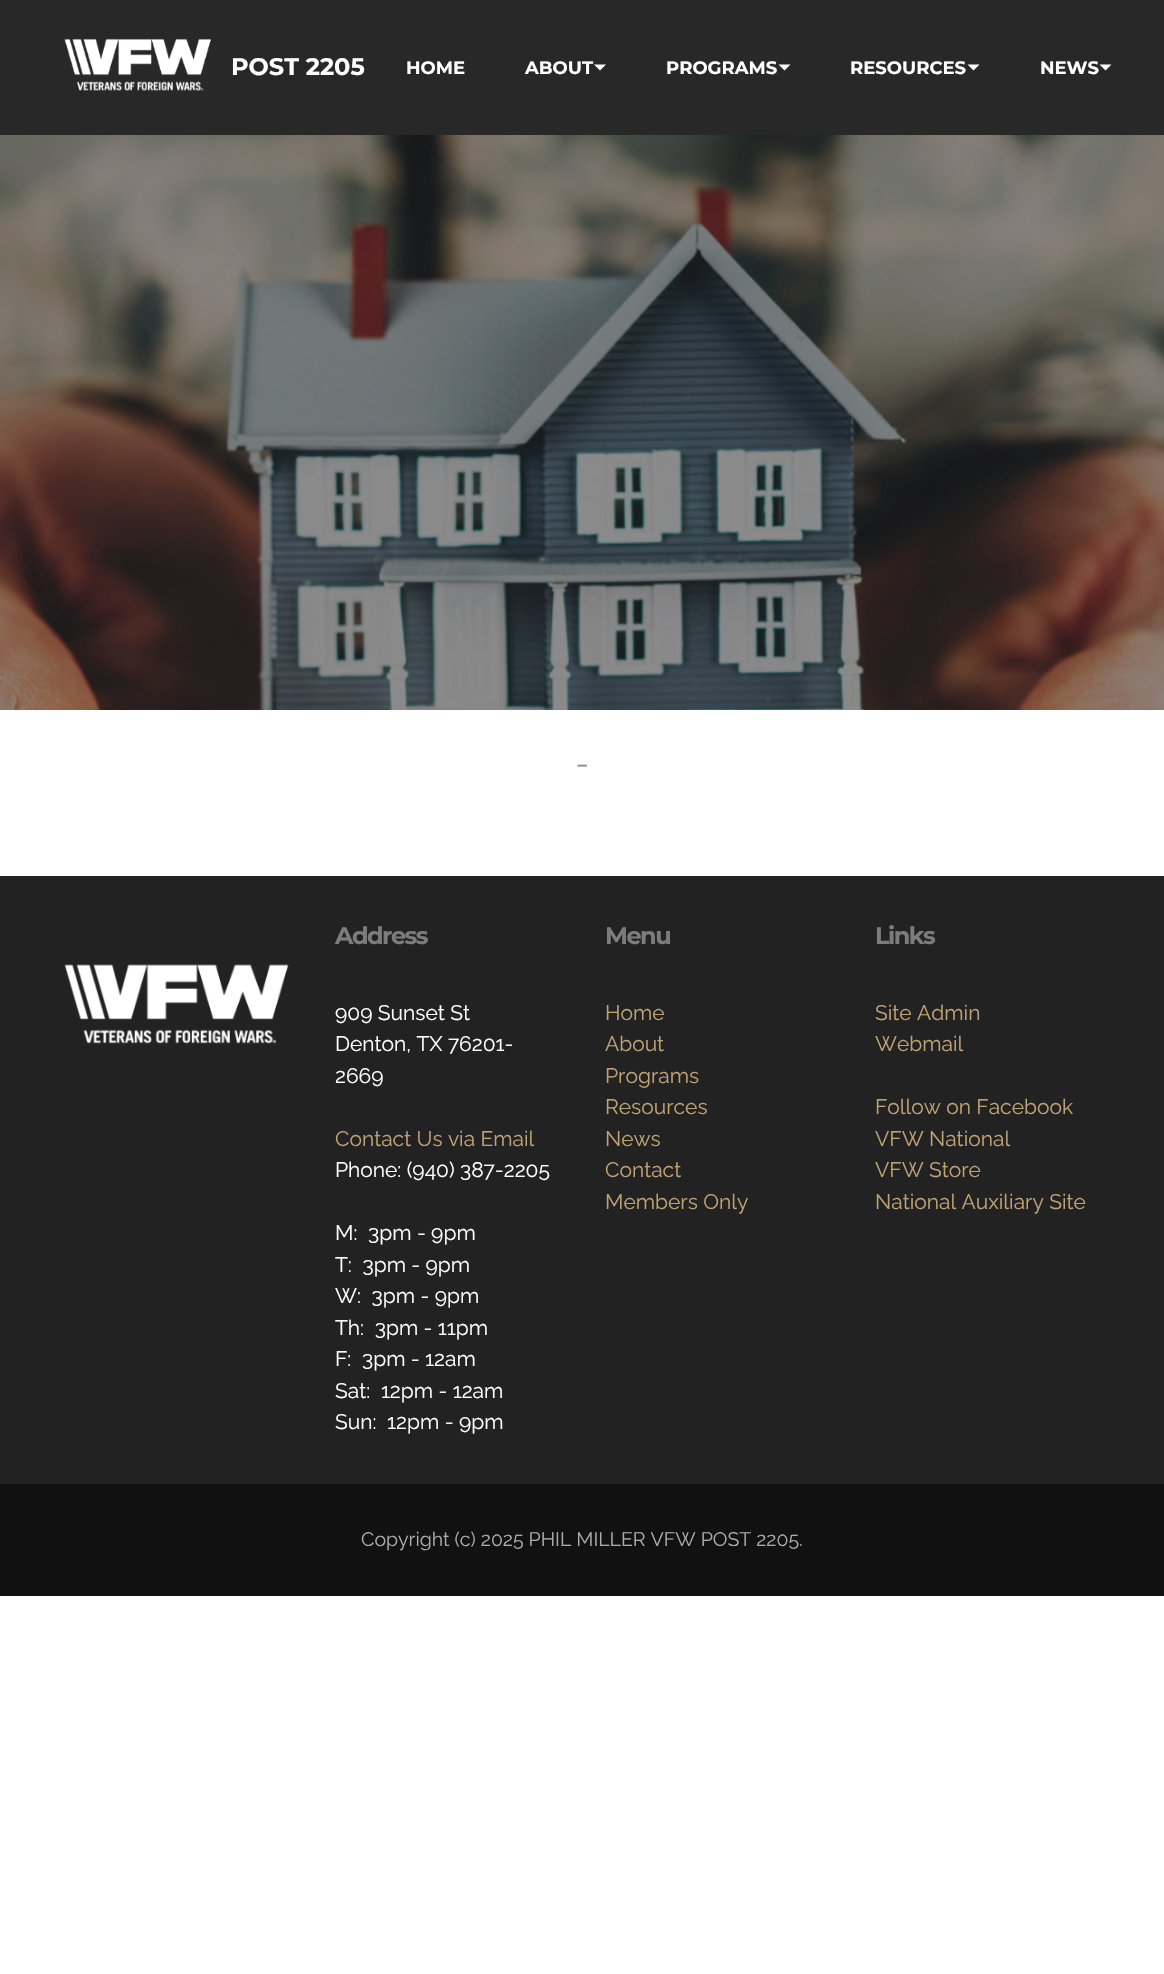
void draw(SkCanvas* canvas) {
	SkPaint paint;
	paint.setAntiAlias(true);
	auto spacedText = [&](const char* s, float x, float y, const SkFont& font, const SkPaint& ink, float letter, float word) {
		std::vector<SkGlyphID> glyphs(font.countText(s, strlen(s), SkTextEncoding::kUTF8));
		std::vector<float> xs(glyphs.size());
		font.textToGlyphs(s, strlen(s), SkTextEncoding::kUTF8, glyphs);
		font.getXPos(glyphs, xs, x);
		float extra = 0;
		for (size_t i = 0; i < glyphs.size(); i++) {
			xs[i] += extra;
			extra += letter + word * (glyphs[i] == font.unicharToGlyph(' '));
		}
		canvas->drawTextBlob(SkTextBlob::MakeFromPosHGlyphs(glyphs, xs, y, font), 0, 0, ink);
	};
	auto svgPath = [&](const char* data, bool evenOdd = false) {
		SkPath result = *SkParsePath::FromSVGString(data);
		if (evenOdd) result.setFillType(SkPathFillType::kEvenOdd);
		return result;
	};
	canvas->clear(0xffffffff);
	paint.setColor(0xff282828);
	canvas->drawRect(SkRect::MakeXYWH(0, 0, 1164, 135), paint);
	canvas->drawImageRect(SkImages::DeferredFromEncodedData(SkData::MakeFromFileName("img1.png")), SkRect::MakeXYWH(64, 38, 147, 53), SkSamplingOptions());
	SkFont f1(fontMgr->matchFamilyStyle("Montserrat", SkFontStyle::Bold()), 24);
	f1.setSubpixel(true);
	paint.setColor(0xffffffff);
	canvas->drawString("POST 2205", 231, 75, f1, paint);
	SkFont f2(fontMgr->matchFamilyStyle("Montserrat", SkFontStyle::Bold()), 18);
	f2.setSubpixel(true);
	canvas->drawString("HOME", 406, 74, f2, paint);
	canvas->drawString("ABOUT", 525, 74, f2, paint);
	canvas->drawPath(svgPath("M594 64.5H606L600 70.5Z"), paint);
	canvas->drawString("PROGRAMS", 666, 74, f2, paint);
	canvas->drawPath(svgPath("M778.5 64.5H790.5L784.5 70.5Z"), paint);
	canvas->drawString("RESOURCES", 850, 74, f2, paint);
	canvas->drawPath(svgPath("M967.5 64.5H979.5L973.5 70.5Z"), paint);
	canvas->drawString("NEWS", 1040, 74, f2, paint);
	canvas->drawPath(svgPath("M1099.5 64.5H1111.5L1105.5 70.5Z"), paint);
	canvas->drawImageRect(SkImages::DeferredFromEncodedData(SkData::MakeFromFileName("img2.png")), SkRect::MakeXYWH(0, 135, 1164, 575), SkSamplingOptions());
	SkFont f3(fontMgr->matchFamilyStyle("Lora", SkFontStyle::Italic()), 26);
	f3.setSubpixel(true);
	paint.setColor(0xff8c8c8c);
	canvas->drawString("-", 576, 774, f3, paint);
	paint.setColor(0xff222222);
	canvas->drawRect(SkRect::MakeXYWH(0, 876, 1164, 608), paint);
	canvas->drawImageRect(SkImages::DeferredFromEncodedData(SkData::MakeFromFileName("img3.png")), SkRect::MakeXYWH(64, 964, 225, 80), SkSamplingOptions());
	paint.setColor(0xff7c7c7c);
	spacedText("Address", 335, 944, f1, paint, -1.5, 0);
	SkFont f4(fontMgr->matchFamilyStyle("Raleway", SkFontStyle::Normal()), 21);
	f4.setSubpixel(true);
	paint.setColor(0xffffffff);
	canvas->drawString("909 Sunset St", 335, 1020, f4, paint);
	canvas->drawString("Denton, TX 76201-", 335, 1051, f4, paint);
	canvas->drawString("2669", 335, 1083, f4, paint);
	paint.setColor(0xffc0a375);
	canvas->drawString("Contact Us via Email", 335, 1146, f4, paint);
	paint.setColor(0xffffffff);
	canvas->drawString("Phone: (940) 387-2205", 335, 1177, f4, paint);
	canvas->drawString("M:  3pm - 9pm", 335, 1240, f4, paint);
	canvas->drawString("T:  3pm - 9pm", 335, 1272, f4, paint);
	canvas->drawString("W:  3pm - 9pm", 335, 1303, f4, paint);
	canvas->drawString("Th:  3pm - 11pm", 335, 1335, f4, paint);
	canvas->drawString("F:  3pm - 12am", 335, 1366, f4, paint);
	canvas->drawString("Sat:  12pm - 12am", 335, 1398, f4, paint);
	canvas->drawString("Sun:  12pm - 9pm", 335, 1429, f4, paint);
	paint.setColor(0xff7c7c7c);
	spacedText("Menu", 605, 944, f1, paint, -1.5, 0);
	paint.setColor(0xffc0a375);
	canvas->drawString("Home", 605, 1020, f4, paint);
	canvas->drawString("About", 605, 1051, f4, paint);
	canvas->drawString("Programs", 605, 1083, f4, paint);
	canvas->drawString("Resources", 605, 1114, f4, paint);
	canvas->drawString("News", 605, 1146, f4, paint);
	canvas->drawString("Contact", 605, 1177, f4, paint);
	canvas->drawString("Members Only", 605, 1209, f4, paint);
	paint.setColor(0xff7c7c7c);
	spacedText("Links", 875, 944, f1, paint, -1.5, 0);
	paint.setColor(0xffc0a375);
	canvas->drawString("Site Admin", 875, 1020, f4, paint);
	canvas->drawString("Webmail", 875, 1051, f4, paint);
	canvas->drawString("Follow on Facebook", 875, 1114, f4, paint);
	canvas->drawString("VFW National", 875, 1146, f4, paint);
	canvas->drawString("VFW Store", 875, 1177, f4, paint);
	canvas->drawString("National Auxiliary Site", 875, 1209, f4, paint);
	paint.setColor(0xff111111);
	canvas->drawRect(SkRect::MakeXYWH(0, 1484, 1164, 112), paint);
	SkFont f5(fontMgr->matchFamilyStyle("Raleway", SkFontStyle::Normal()), 19.5);
	f5.setSubpixel(true);
	paint.setColor(0xffacacac);
	canvas->drawString("Copyright (c) 2025 PHIL MILLER VFW POST 2205.", 361, 1546, f5, paint);
}
